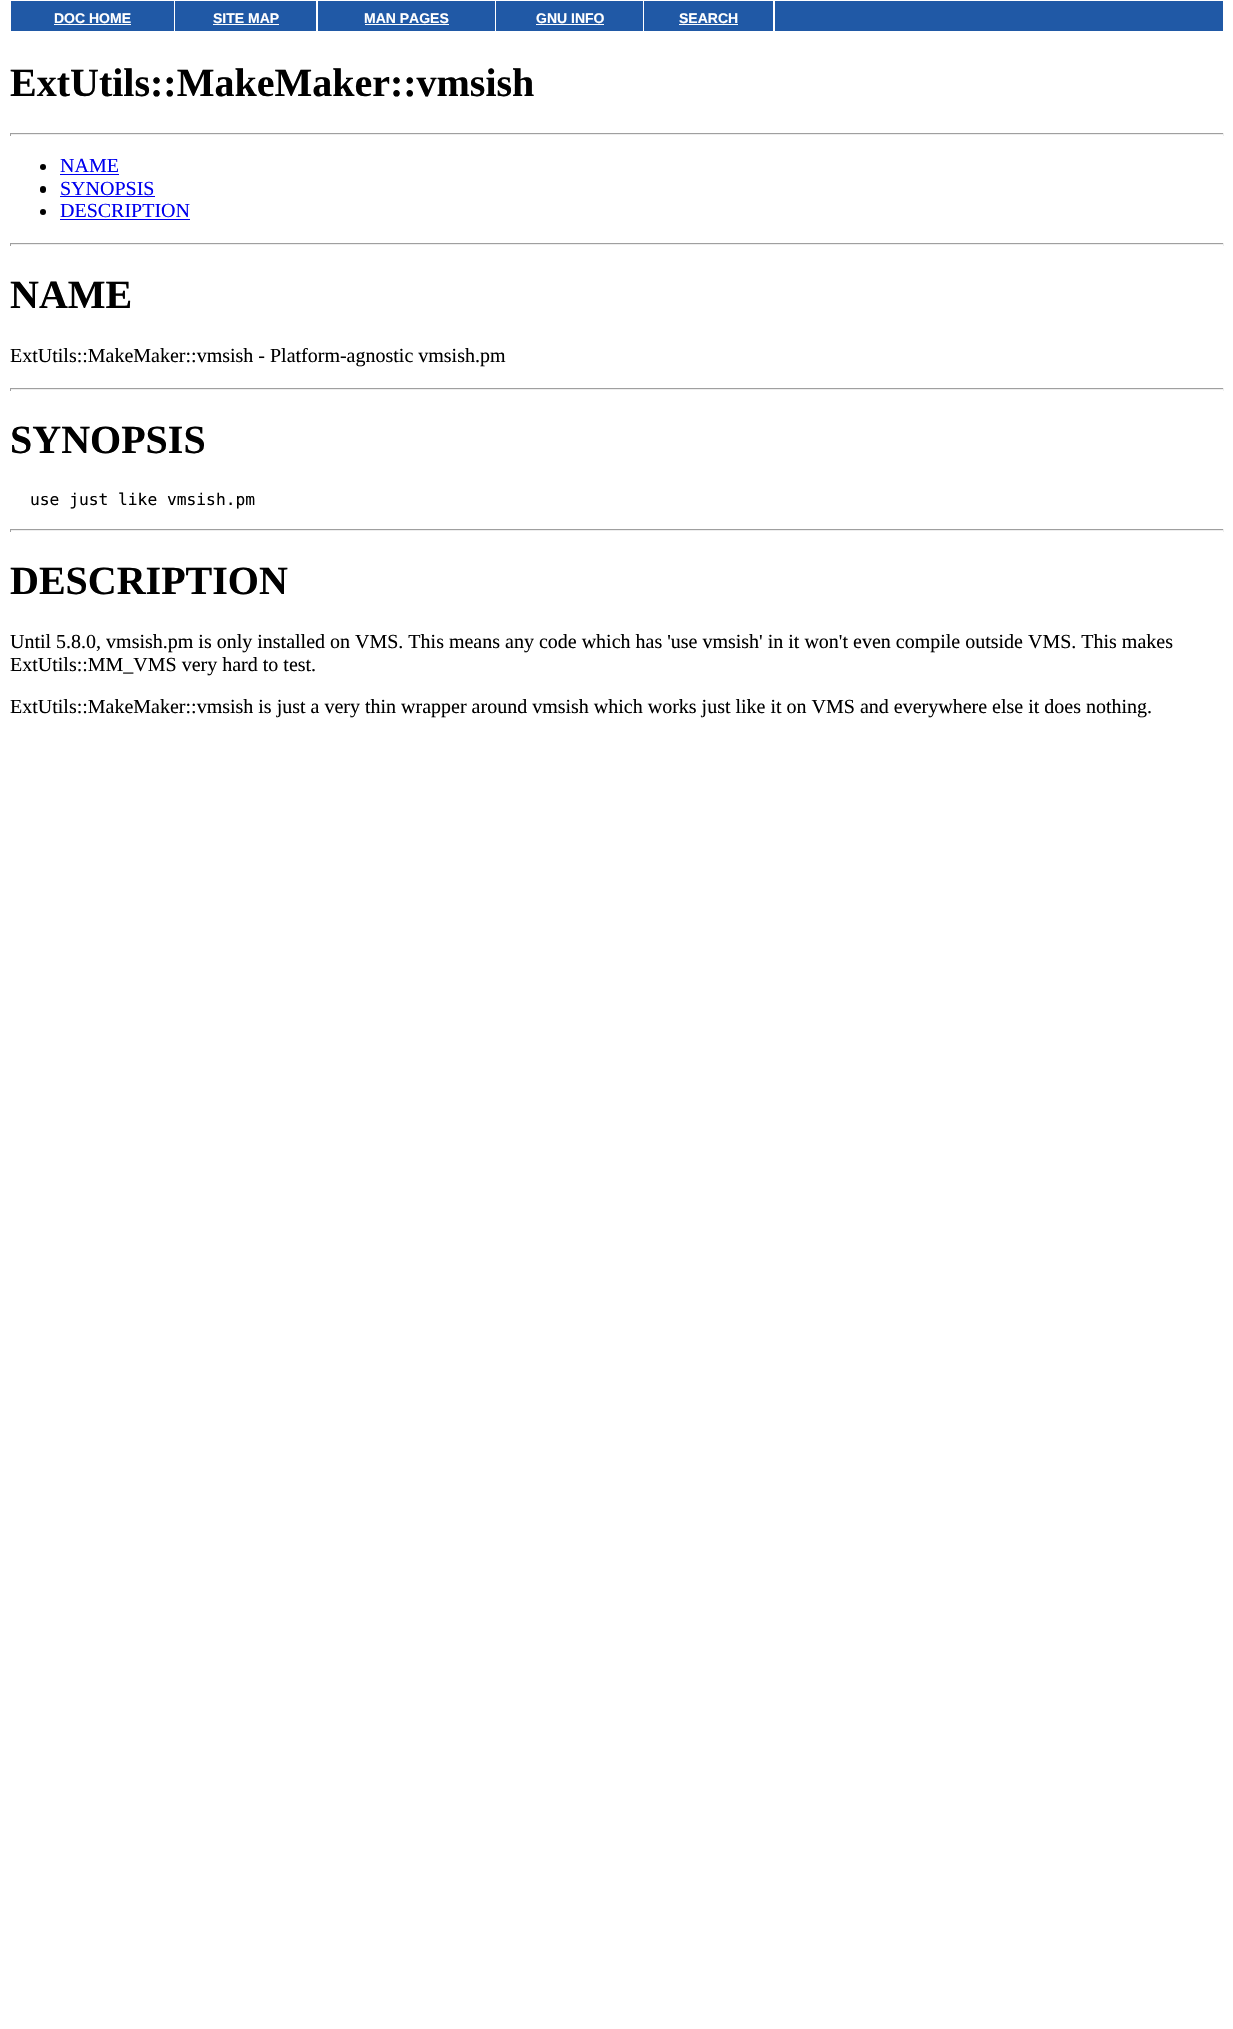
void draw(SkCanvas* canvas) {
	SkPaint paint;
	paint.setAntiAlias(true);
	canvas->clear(0xffffffff);
	paint.setColor(0xff2059a6);
	canvas->drawRect(SkRect::MakeXYWH(11, 1, 163, 30), paint);
	SkFont f1(fontMgr->matchFamilyStyle("Liberation Sans", SkFontStyle::Bold()), 14);
	f1.setSubpixel(true);
	paint.setColor(0xffffffff);
	canvas->drawString("DOC HOME", 54, 23, f1, paint);
	canvas->drawRect(SkRect::MakeXYWH(54, 24, 77, 1), paint);
	paint.setColor(0xff2059a6);
	canvas->drawRect(SkRect::MakeXYWH(175, 1, 141, 30), paint);
	paint.setColor(0xffffffff);
	canvas->drawString("SITE MAP", 213, 23, f1, paint);
	canvas->drawRect(SkRect::MakeXYWH(213, 24, 66, 1), paint);
	paint.setColor(0xff2059a6);
	canvas->drawRect(SkRect::MakeXYWH(318, 1, 177, 30), paint);
	paint.setColor(0xffffffff);
	canvas->drawString("MAN PAGES", 364, 23, f1, paint);
	canvas->drawRect(SkRect::MakeXYWH(365, 24, 84, 1), paint);
	paint.setColor(0xff2059a6);
	canvas->drawRect(SkRect::MakeXYWH(496, 1, 147, 30), paint);
	paint.setColor(0xffffffff);
	canvas->drawString("GNU INFO", 536, 23, f1, paint);
	canvas->drawRect(SkRect::MakeXYWH(536, 24, 68, 1), paint);
	paint.setColor(0xff2059a6);
	canvas->drawRect(SkRect::MakeXYWH(644, 1, 129, 30), paint);
	paint.setColor(0xffffffff);
	canvas->drawString("SEARCH", 679, 23, f1, paint);
	canvas->drawRect(SkRect::MakeXYWH(679, 24, 59, 1), paint);
	paint.setColor(0xff2059a6);
	canvas->drawRect(SkRect::MakeXYWH(775, 1, 448, 30), paint);
	SkFont f2(fontMgr->matchFamilyStyle("Liberation Serif", SkFontStyle::Bold()), 40);
	f2.setSubpixel(true);
	paint.setColor(0xff000000);
	canvas->drawString("ExtUtils::MakeMaker::vmsish", 10, 96, f2, paint);
	paint.setColor(0xff9f9f9f);
	canvas->drawRect(SkRect::MakeXYWH(10, 133, 1214, 1), paint);
	paint.setColor(0xffeeeeee);
	canvas->drawRect(SkRect::MakeXYWH(1223, 133, 1, 3), paint);
	canvas->drawRect(SkRect::MakeXYWH(10, 134, 1214, 1), paint);
	paint.setColor(0xff9f9f9f);
	canvas->drawRect(SkRect::MakeXYWH(10, 133, 1, 3), paint);
	paint.setColor(0xff000000);
	canvas->drawCircle(43, 167, 3, paint);
	SkFont f3(fontMgr->matchFamilyStyle("Liberation Serif", SkFontStyle::Normal()), 20);
	f3.setSubpixel(true);
	paint.setColor(0xff0000ee);
	canvas->drawString("NAME", 60, 172, f3, paint);
	canvas->drawRect(SkRect::MakeXYWH(60, 174, 59, 1), paint);
	paint.setColor(0xff000000);
	canvas->drawRoundRect(SkRect::MakeXYWH(40, 186, 6, 7), 3, 3, paint);
	paint.setColor(0xff0000ee);
	canvas->drawString("SYNOPSIS", 60, 195, f3, paint);
	canvas->drawRect(SkRect::MakeXYWH(60, 196, 95, 1), paint);
	paint.setColor(0xff000000);
	canvas->drawCircle(43, 212, 3, paint);
	paint.setColor(0xff0000ee);
	canvas->drawString("DESCRIPTION", 60, 217, f3, paint);
	canvas->drawRect(SkRect::MakeXYWH(60, 219, 130, 1), paint);
	paint.setColor(0xff9f9f9f);
	canvas->drawRect(SkRect::MakeXYWH(10, 243, 1214, 1), paint);
	paint.setColor(0xffeeeeee);
	canvas->drawRect(SkRect::MakeXYWH(1223, 243, 1, 3), paint);
	canvas->drawRect(SkRect::MakeXYWH(10, 244, 1214, 1), paint);
	paint.setColor(0xff9f9f9f);
	canvas->drawRect(SkRect::MakeXYWH(10, 243, 1, 3), paint);
	paint.setColor(0xff000000);
	canvas->drawString("NAME", 10, 308, f2, paint);
	canvas->drawString("ExtUtils::MakeMaker::vmsish - Platform-agnostic vmsish.pm", 10, 362, f3, paint);
	paint.setColor(0xff9f9f9f);
	canvas->drawRect(SkRect::MakeXYWH(10, 388, 1214, 1), paint);
	paint.setColor(0xffeeeeee);
	canvas->drawRect(SkRect::MakeXYWH(1223, 388, 1, 3), paint);
	canvas->drawRect(SkRect::MakeXYWH(10, 389, 1214, 1), paint);
	paint.setColor(0xff9f9f9f);
	canvas->drawRect(SkRect::MakeXYWH(10, 388, 1, 3), paint);
	paint.setColor(0xff000000);
	canvas->drawString("SYNOPSIS", 10, 453, f2, paint);
	SkFont f4(fontMgr->matchFamilyStyle("DejaVu Sans Mono", SkFontStyle::Normal()), 16.25);
	f4.setSubpixel(true);
	canvas->drawString("use just like vmsish.pm", 30, 505, f4, paint);
	paint.setColor(0xff9f9f9f);
	canvas->drawRect(SkRect::MakeXYWH(10, 529, 1214, 1), paint);
	paint.setColor(0xffeeeeee);
	canvas->drawRect(SkRect::MakeXYWH(1223, 529, 1, 3), paint);
	canvas->drawRect(SkRect::MakeXYWH(10, 530, 1214, 1), paint);
	paint.setColor(0xff9f9f9f);
	canvas->drawRect(SkRect::MakeXYWH(10, 529, 1, 3), paint);
	paint.setColor(0xff000000);
	canvas->drawString("DESCRIPTION", 10, 594, f2, paint);
	canvas->drawString("Until 5.8.0, vmsish.pm is only installed on VMS. This means any code which has 'use vmsish' in it won't even compile outside VMS. This makes", 10, 648, f3, paint);
	canvas->drawString("ExtUtils::MM_VMS very hard to test.", 10, 671, f3, paint);
	canvas->drawString("ExtUtils::MakeMaker::vmsish is just a very thin wrapper around vmsish which works just like it on VMS and everywhere else it does nothing.", 10, 713, f3, paint);
}
